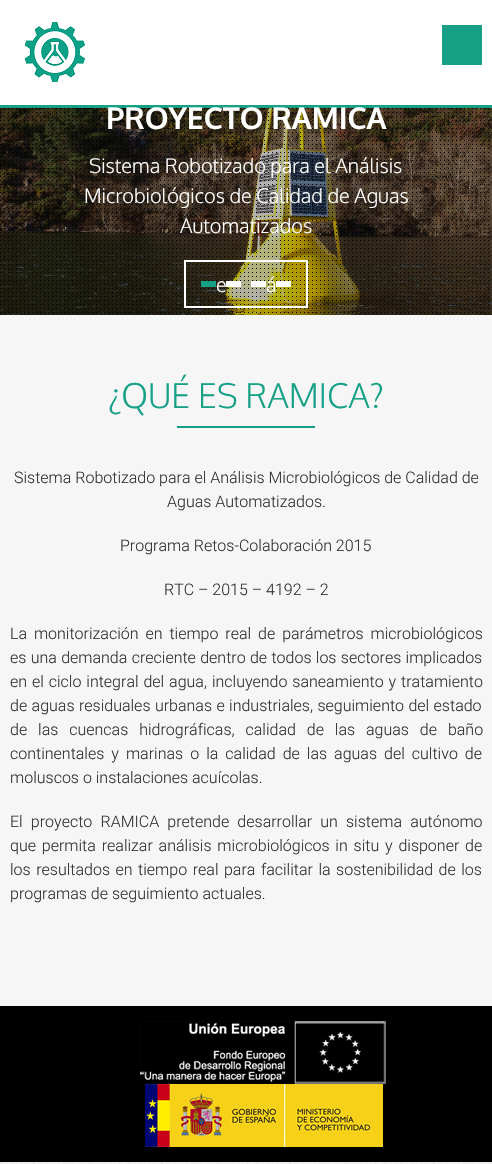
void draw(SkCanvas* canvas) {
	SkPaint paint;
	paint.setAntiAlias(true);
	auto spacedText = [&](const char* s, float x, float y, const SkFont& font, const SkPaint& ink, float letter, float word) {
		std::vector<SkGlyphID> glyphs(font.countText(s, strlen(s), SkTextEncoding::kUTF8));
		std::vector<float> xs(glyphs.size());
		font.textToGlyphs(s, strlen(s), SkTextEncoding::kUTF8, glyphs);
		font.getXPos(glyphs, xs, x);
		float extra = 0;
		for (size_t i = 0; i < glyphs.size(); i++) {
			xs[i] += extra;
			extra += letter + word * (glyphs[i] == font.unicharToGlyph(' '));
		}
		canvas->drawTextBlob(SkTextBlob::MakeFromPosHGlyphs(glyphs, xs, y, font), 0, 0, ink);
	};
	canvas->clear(0xffffffff);
	canvas->drawImageRect(SkImages::DeferredFromEncodedData(SkData::MakeFromFileName("img1.png")), SkRect::MakeXYWH(0, 108, 492, 1056), SkSamplingOptions());
	paint.setColor(0xff16a086);
	canvas->drawRect(SkRect::MakeXYWH(0, 105, 492, 3), paint);
	canvas->drawImageRect(SkImages::DeferredFromEncodedData(SkData::MakeFromFileName("img2.png")), SkRect::MakeXYWH(24, 22, 61, 60), SkSamplingOptions());
	canvas->drawRect(SkRect::MakeXYWH(442, 25, 40, 40), paint);
	canvas->drawImageRect(SkImages::DeferredFromEncodedData(SkData::MakeFromFileName("img3.png")), SkRect::MakeXYWH(0, 108, 492, 207), SkSamplingOptions());
	paint.setColor(0x4d000000);
	canvas->drawRect(SkRect::MakeXYWH(0, 108, 492, 207), paint);
	canvas->drawImageRect(SkImages::DeferredFromEncodedData(SkData::MakeFromFileName("img4.png")), SkRect::MakeXYWH(0, 108, 489, 205), SkSamplingOptions());
	SkFont f1(fontMgr->matchFamilyStyle("Oxygen", SkFontStyle::Bold()), 30);
	f1.setSubpixel(true);
	paint.setColor(0xffffffff);
	canvas->drawString("PROYECTO RAMICA", 106, 129, f1, paint);
	SkFont f2(fontMgr->matchFamilyStyle("Oxygen", SkFontStyle(300, SkFontStyle::kNormal_Width, SkFontStyle::kUpright_Slant)), 20);
	f2.setSubpixel(true);
	canvas->drawString("Sistema Robotizado para el Análisis", 89, 173, f2, paint);
	canvas->drawString("Microbiológicos de Calidad de Aguas", 84, 203, f2, paint);
	canvas->drawString("Automatizados", 180, 233, f2, paint);
	paint.setStroke(true);
	paint.setStrokeWidth(2);
	canvas->drawRect(SkRect::MakeXYWH(185, 261, 122, 46), paint);
	paint.setStroke(false);
	canvas->drawString("e", 216, 292, f2, paint);
	canvas->drawString("á", 266, 292, f2, paint);
	paint.setColor(0xff16a086);
	canvas->drawRect(SkRect::MakeXYWH(201, 281, 15, 6), paint);
	paint.setColor(0xffffffff);
	canvas->drawRect(SkRect::MakeXYWH(226, 281, 15, 6), paint);
	canvas->drawRect(SkRect::MakeXYWH(251, 281, 15, 6), paint);
	canvas->drawRect(SkRect::MakeXYWH(276, 281, 15, 6), paint);
	paint.setColor(0xfff6f6f6);
	canvas->drawRect(SkRect::MakeXYWH(0, 315, 492, 691), paint);
	SkFont f3(fontMgr->matchFamilyStyle("Oxygen", SkFontStyle(300, SkFontStyle::kNormal_Width, SkFontStyle::kUpright_Slant)), 34);
	f3.setSubpixel(true);
	paint.setColor(0xff16a086);
	canvas->drawString("¿QUÉ ES RAMICA?", 108, 408, f3, paint);
	canvas->drawRect(SkRect::MakeXYWH(177, 426, 138, 2), paint);
	SkFont f4(fontMgr->matchFamilyStyle("Roboto", SkFontStyle(300, SkFontStyle::kNormal_Width, SkFontStyle::kUpright_Slant)), 16);
	f4.setSubpixel(true);
	paint.setColor(0xff333333);
	canvas->drawString("Sistema Robotizado para el Análisis Microbiológicos de Calidad de", 14, 483, f4, paint);
	canvas->drawString("Aguas Automatizados.", 167, 507, f4, paint);
	canvas->drawString("Programa Retos-Colaboración 2015", 120, 551, f4, paint);
	canvas->drawString("RTC – 2015 – 4192 – 2", 164, 595, f4, paint);
	spacedText("La monitorización en tiempo real de parámetros microbiológicos", 10, 639, f4, paint, 0, 3);
	spacedText("es una demanda creciente dentro de todos los sectores implicados", 10, 663, f4, paint, 0, 0.4);
	spacedText("en el ciclo integral del agua, incluyendo saneamiento y tratamiento", 10, 687, f4, paint, 0, 1);
	spacedText("de aguas residuales urbanas e industriales, seguimiento del estado", 10, 711, f4, paint, 0, 0.5);
	spacedText("de las cuencas hidrográficas, calidad de las aguas de baño", 10, 735, f4, paint, 0, 7);
	spacedText("continentales y marinas o la calidad de las aguas del cultivo de", 10, 759, f4, paint, 0, 3.1);
	canvas->drawString("moluscos o instalaciones acuícolas.", 10, 783, f4, paint);
	spacedText("El proyecto RAMICA pretende desarrollar un sistema autónomo", 10, 827, f4, paint, 0, 4.25);
	spacedText("que permita realizar análisis microbiológicos in situ y disponer de", 10, 851, f4, paint, 0, 1.9);
	spacedText("los resultados en tiempo real para facilitar la sostenibilidad de los", 10, 875, f4, paint, 0, 1.6);
	canvas->drawString("programas de seguimiento actuales.", 10, 899, f4, paint);
	paint.setColor(0xff000000);
	canvas->drawRect(SkRect::MakeXYWH(0, 1006, 492, 156), paint);
	canvas->drawImageRect(SkImages::DeferredFromEncodedData(SkData::MakeFromFileName("img5.png")), SkRect::MakeXYWH(140, 1021, 247, 63), SkSamplingOptions());
	canvas->drawImageRect(SkImages::DeferredFromEncodedData(SkData::MakeFromFileName("img6.png")), SkRect::MakeXYWH(145, 1084, 238, 63), SkSamplingOptions());
}
